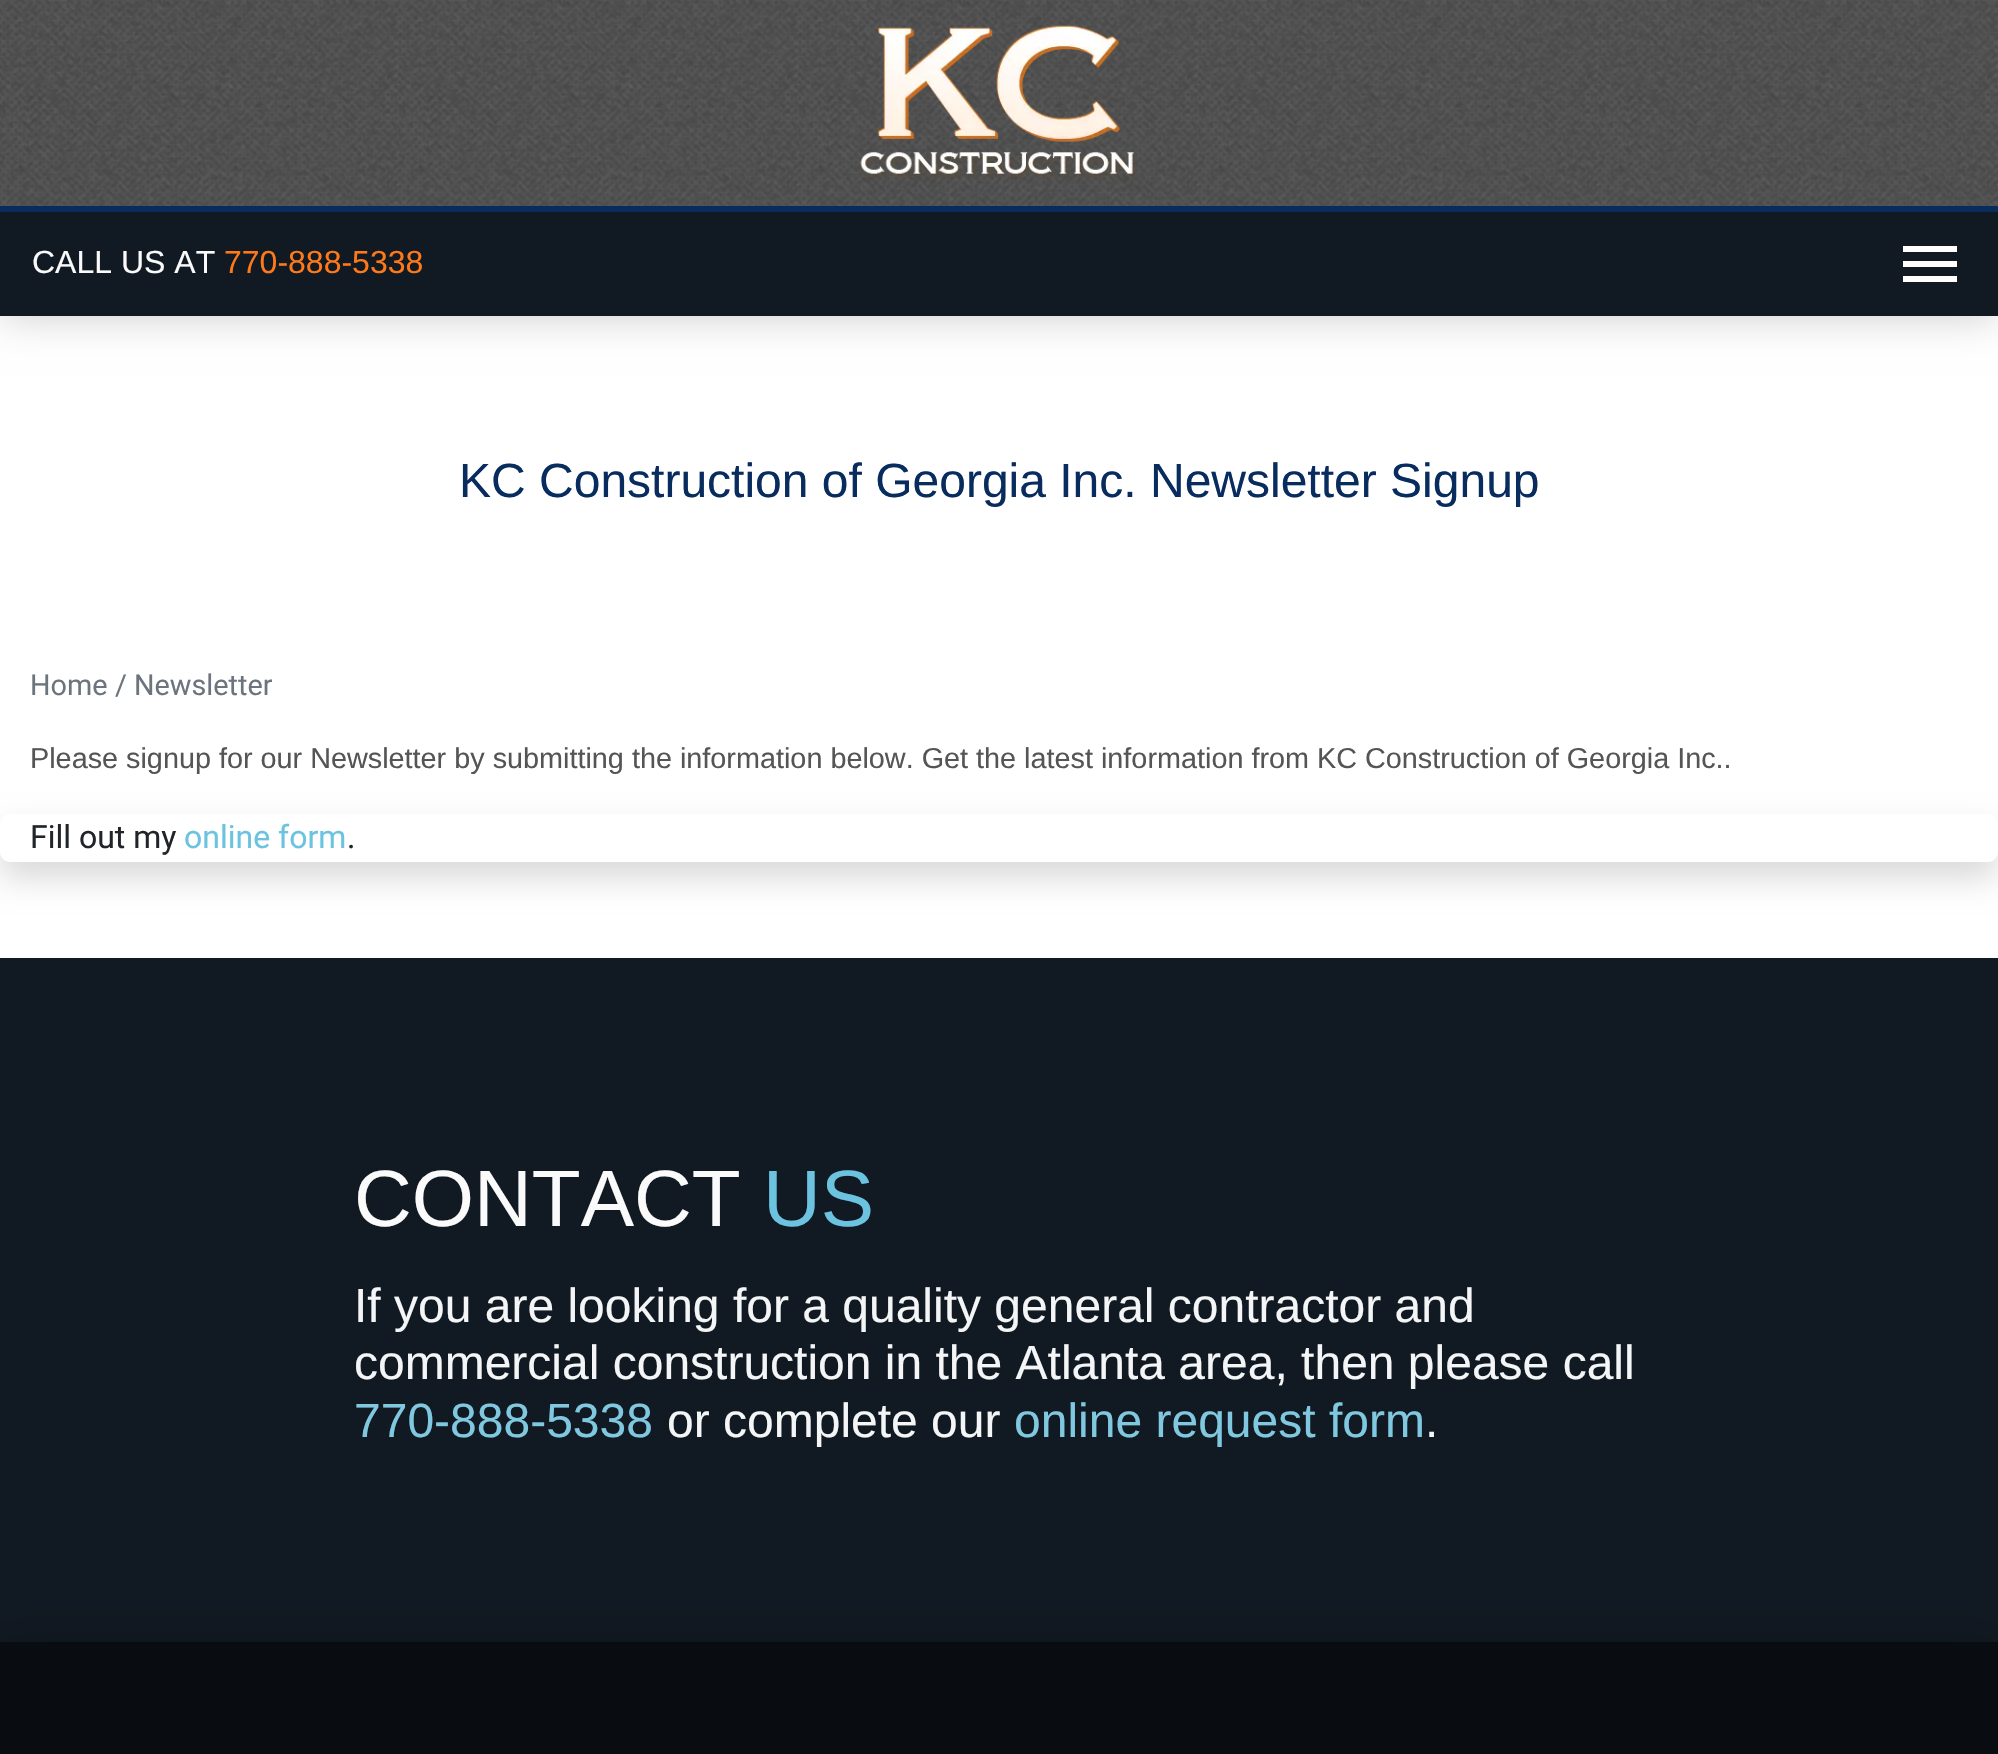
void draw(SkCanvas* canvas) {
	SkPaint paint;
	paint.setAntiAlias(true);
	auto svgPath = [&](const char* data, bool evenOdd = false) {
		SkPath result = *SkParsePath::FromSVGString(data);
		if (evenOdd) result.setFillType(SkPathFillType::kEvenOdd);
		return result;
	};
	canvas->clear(0xffffffff);
	paint.setColor(0x33000000);
	paint.setMaskFilter(SkMaskFilter::MakeBlur(kNormal_SkBlurStyle, 20));
	canvas->drawRect(SkRect::MakeXYWH(0, 0, 1998, 316), paint);
	paint.setMaskFilter(nullptr);
	canvas->drawImageRect(SkImages::DeferredFromEncodedData(SkData::MakeFromFileName("img1.png")), SkRect::MakeXYWH(0, 0, 1998, 206), SkSamplingOptions());
	canvas->drawImageRect(SkImages::DeferredFromEncodedData(SkData::MakeFromFileName("img2.png")), SkRect::MakeXYWH(860, 25, 278, 155), SkSamplingOptions());
	paint.setColor(0xff111922);
	canvas->drawRect(SkRect::MakeXYWH(0, 212, 1998, 104), paint);
	paint.setColor(0xff082c5e);
	canvas->drawRect(SkRect::MakeXYWH(0, 206, 1998, 6), paint);
	SkFont f1(fontMgr->matchFamilyStyle("Liberation Sans", SkFontStyle::Normal()), 32);
	f1.setSubpixel(true);
	paint.setColor(0xfffafafb);
	canvas->drawString("CALL US AT", 32, 273, f1, paint);
	paint.setColor(0xffff7919);
	canvas->drawString("770-888-5338", 224, 273, f1, paint);
	paint.setColor(0xffffffff);
	canvas->drawPath(svgPath("M1903 282H1957V276H1903ZM1903 267H1957V261H1903ZM1903 246V252H1957V246Z"), paint);
	SkFont f2(fontMgr->matchFamilyStyle("Liberation Sans", SkFontStyle::Normal()), 48);
	f2.setSubpixel(true);
	paint.setColor(0xff082c5e);
	canvas->drawString("KC Construction of Georgia Inc. Newsletter Signup", 459, 497, f2, paint);
	SkFont f3(fontMgr->matchFamilyStyle("Roboto", SkFontStyle::Normal()), 28.8);
	f3.setSubpixel(true);
	paint.setColor(0xff6c757d);
	canvas->drawString("Home", 30, 695, f3, paint);
	canvas->drawString("/", 115, 695, f3, paint);
	canvas->save();
	canvas->clipRect(SkRect::MakeXYWH(116, 666, 156, 42));
	canvas->drawString("Newsletter", 134, 695, f3, paint);
	canvas->restore();
	SkFont f4(fontMgr->matchFamilyStyle("Liberation Sans", SkFontStyle::Normal()), 28.8);
	f4.setSubpixel(true);
	paint.setColor(0xff555555);
	canvas->drawString("Please signup for our Newsletter by submitting the information below. Get the latest information from KC Construction of Georgia Inc..", 30, 768, f4, paint);
	canvas->save();
	canvas->clipPath(svgPath("M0 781H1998V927H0ZM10 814H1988C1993.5 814 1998 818.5 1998 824V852C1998 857.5 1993.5 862 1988 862H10C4.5 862 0 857.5 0 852V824C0 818.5 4.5 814 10 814Z", true), true);
	paint.setColor(0x26000000);
	paint.setMaskFilter(SkMaskFilter::MakeBlur(kNormal_SkBlurStyle, 16));
	canvas->drawRoundRect(SkRect::MakeXYWH(0, 830, 1998, 48), 10, 10, paint);
	paint.setMaskFilter(nullptr);
	canvas->restore();
	SkFont f5(fontMgr->matchFamilyStyle("Roboto", SkFontStyle::Normal()), 32);
	f5.setSubpixel(true);
	paint.setColor(0xff212529);
	canvas->drawString("Fill out my", 30, 848, f5, paint);
	paint.setColor(0xff6cc3e0);
	canvas->drawString("online form", 184, 848, f5, paint);
	paint.setColor(0xff212529);
	canvas->drawString(".", 347, 848, f5, paint);
	paint.setColor(0xff111922);
	canvas->drawRect(SkRect::MakeXYWH(0, 958, 1998, 684), paint);
	SkFont f6(fontMgr->matchFamilyStyle("Liberation Sans", SkFontStyle::Normal()), 80);
	f6.setSubpixel(true);
	paint.setColor(0xfffafafb);
	canvas->drawString("CONTACT", 354, 1226, f6, paint);
	paint.setColor(0xff6cc3e0);
	canvas->drawString("US", 763, 1226, f6, paint);
	paint.setColor(0xfff3f5f6);
	canvas->drawString("If you are looking for a quality general contractor and", 354, 1322, f2, paint);
	canvas->drawString("commercial construction in the Atlanta area, then please call", 354, 1379, f2, paint);
	paint.setColor(0xff7fc8e0);
	canvas->drawString("770-888-5338", 354, 1437, f2, paint);
	paint.setColor(0xfff3f5f6);
	canvas->drawString("or complete our", 667, 1437, f2, paint);
	paint.setColor(0xff7fc8e0);
	canvas->drawString("online request form", 1014, 1437, f2, paint);
	paint.setColor(0xfff3f5f6);
	canvas->drawString(".", 1425, 1437, f2, paint);
	paint.setColor(0x33000000);
	paint.setMaskFilter(SkMaskFilter::MakeBlur(kNormal_SkBlurStyle, 20));
	canvas->drawRect(SkRect::MakeXYWH(0, 1642, 1998, 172), paint);
	paint.setMaskFilter(nullptr);
	paint.setColor(0xff090d11);
	canvas->drawRect(SkRect::MakeXYWH(0, 1642, 1998, 112), paint);
}
